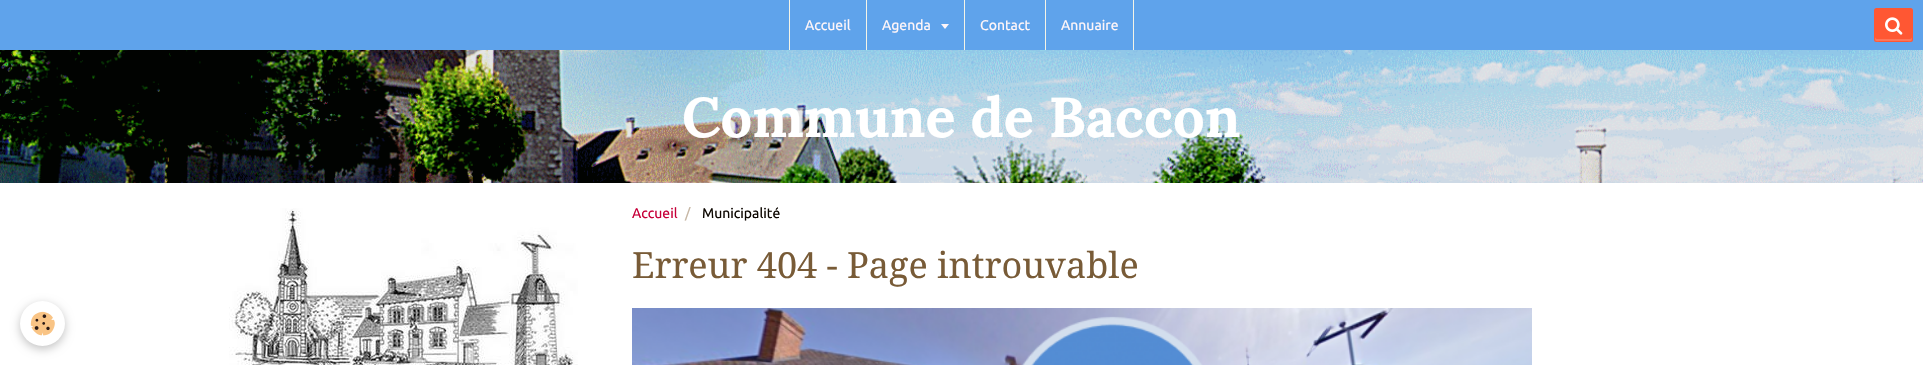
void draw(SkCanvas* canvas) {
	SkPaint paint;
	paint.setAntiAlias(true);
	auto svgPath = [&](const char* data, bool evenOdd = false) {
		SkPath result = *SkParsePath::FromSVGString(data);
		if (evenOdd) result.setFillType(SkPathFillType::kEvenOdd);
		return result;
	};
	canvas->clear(0xffffffff);
	paint.setColor(0xff5fa3eb);
	canvas->drawRect(SkRect::MakeXYWH(0, 0, 1923, 50), paint);
	paint.setColor(0xfff5f4e7);
	canvas->drawRect(SkRect::MakeXYWH(866, 0, 1, 50), paint);
	canvas->drawRect(SkRect::MakeXYWH(789, 0, 1, 50), paint);
	SkFont f1(fontMgr->matchFamilyStyle("Ubuntu", SkFontStyle::Normal()), 14);
	f1.setSubpixel(true);
	paint.setColor(0xfffff6f9);
	canvas->drawString("Accueil", 805, 30, f1, paint);
	paint.setColor(0xfff5f4e7);
	canvas->drawRect(SkRect::MakeXYWH(964, 0, 1, 50), paint);
	paint.setColor(0xfffff6f9);
	canvas->drawString("Agenda", 882, 30, f1, paint);
	canvas->drawPath(svgPath("M941 24H949L945 29Z"), paint);
	paint.setColor(0xfff5f4e7);
	canvas->drawRect(SkRect::MakeXYWH(1045, 0, 1, 50), paint);
	paint.setColor(0xfffff6f9);
	canvas->drawString("Contact", 980, 30, f1, paint);
	paint.setColor(0xfff5f4e7);
	canvas->drawRect(SkRect::MakeXYWH(1133, 0, 1, 50), paint);
	paint.setColor(0xfffff6f9);
	canvas->drawString("Annuaire", 1061, 30, f1, paint);
	paint.setColor(0xffff5733);
	canvas->drawRoundRect(SkRect::MakeXYWH(1874, 8, 39, 34), 2.5, 2.5, paint);
	paint.setColor(0xfffd7559);
	canvas->drawPath(svgPath("M1875 37C1875 42.5 1876 41 1882 41H1905C1911 41 1912 42.5 1912 37C1912 38 1911 39 1910 39H1877C1876 39 1875 38 1875 37Z"), paint);
	canvas->drawImageRect(SkImages::DeferredFromEncodedData(SkData::MakeFromFileName("img1.png")), SkRect::MakeXYWH(1885, 17, 18, 18), SkSamplingOptions());
	canvas->drawImageRect(SkImages::DeferredFromEncodedData(SkData::MakeFromFileName("img2.png")), SkRect::MakeXYWH(0, 50, 1923, 133), SkSamplingOptions());
	SkFont f2(fontMgr->matchFamilyStyle("Lora", SkFontStyle::Bold()), 56);
	f2.setSubpixel(true);
	paint.setColor(0xffffffff);
	canvas->drawString("Commune de Baccon", 682, 137, f2, paint);
	canvas->drawImageRect(SkImages::DeferredFromEncodedData(SkData::MakeFromFileName("img3.png")), SkRect::MakeXYWH(229, 208, 349, 157), SkSamplingOptions());
	paint.setColor(0xffc70039);
	canvas->drawString("Accueil", 632, 218, f1, paint);
	paint.setColor(0xffc6b6a3);
	canvas->drawString("/", 685, 218, f1, paint);
	paint.setColor(0xff0d0701);
	canvas->drawString("Municipalité", 702, 218, f1, paint);
	SkFont f3(fontMgr->matchFamilyStyle("Droid Serif", SkFontStyle::Normal()), 36);
	f3.setSubpixel(true);
	paint.setColor(0xff785b37);
	canvas->drawString("Erreur 404 - Page introuvable", 632, 278, f3, paint);
	canvas->drawImageRect(SkImages::DeferredFromEncodedData(SkData::MakeFromFileName("img4.png")), SkRect::MakeXYWH(632, 308, 900, 57), SkSamplingOptions());
	paint.setColor(0x3d000000);
	paint.setMaskFilter(SkMaskFilter::MakeBlur(kNormal_SkBlurStyle, 5));
	canvas->drawRoundRect(SkRect::MakeXYWH(20, 304, 45, 45), 22.5, 22.5, paint);
	paint.setMaskFilter(nullptr);
	paint.setColor(0xffffffff);
	canvas->drawCircle(42.5, 323.5, 22.5, paint);
	canvas->drawImageRect(SkImages::DeferredFromEncodedData(SkData::MakeFromFileName("img5.png")), SkRect::MakeXYWH(30, 311, 25, 25), SkSamplingOptions());
}
